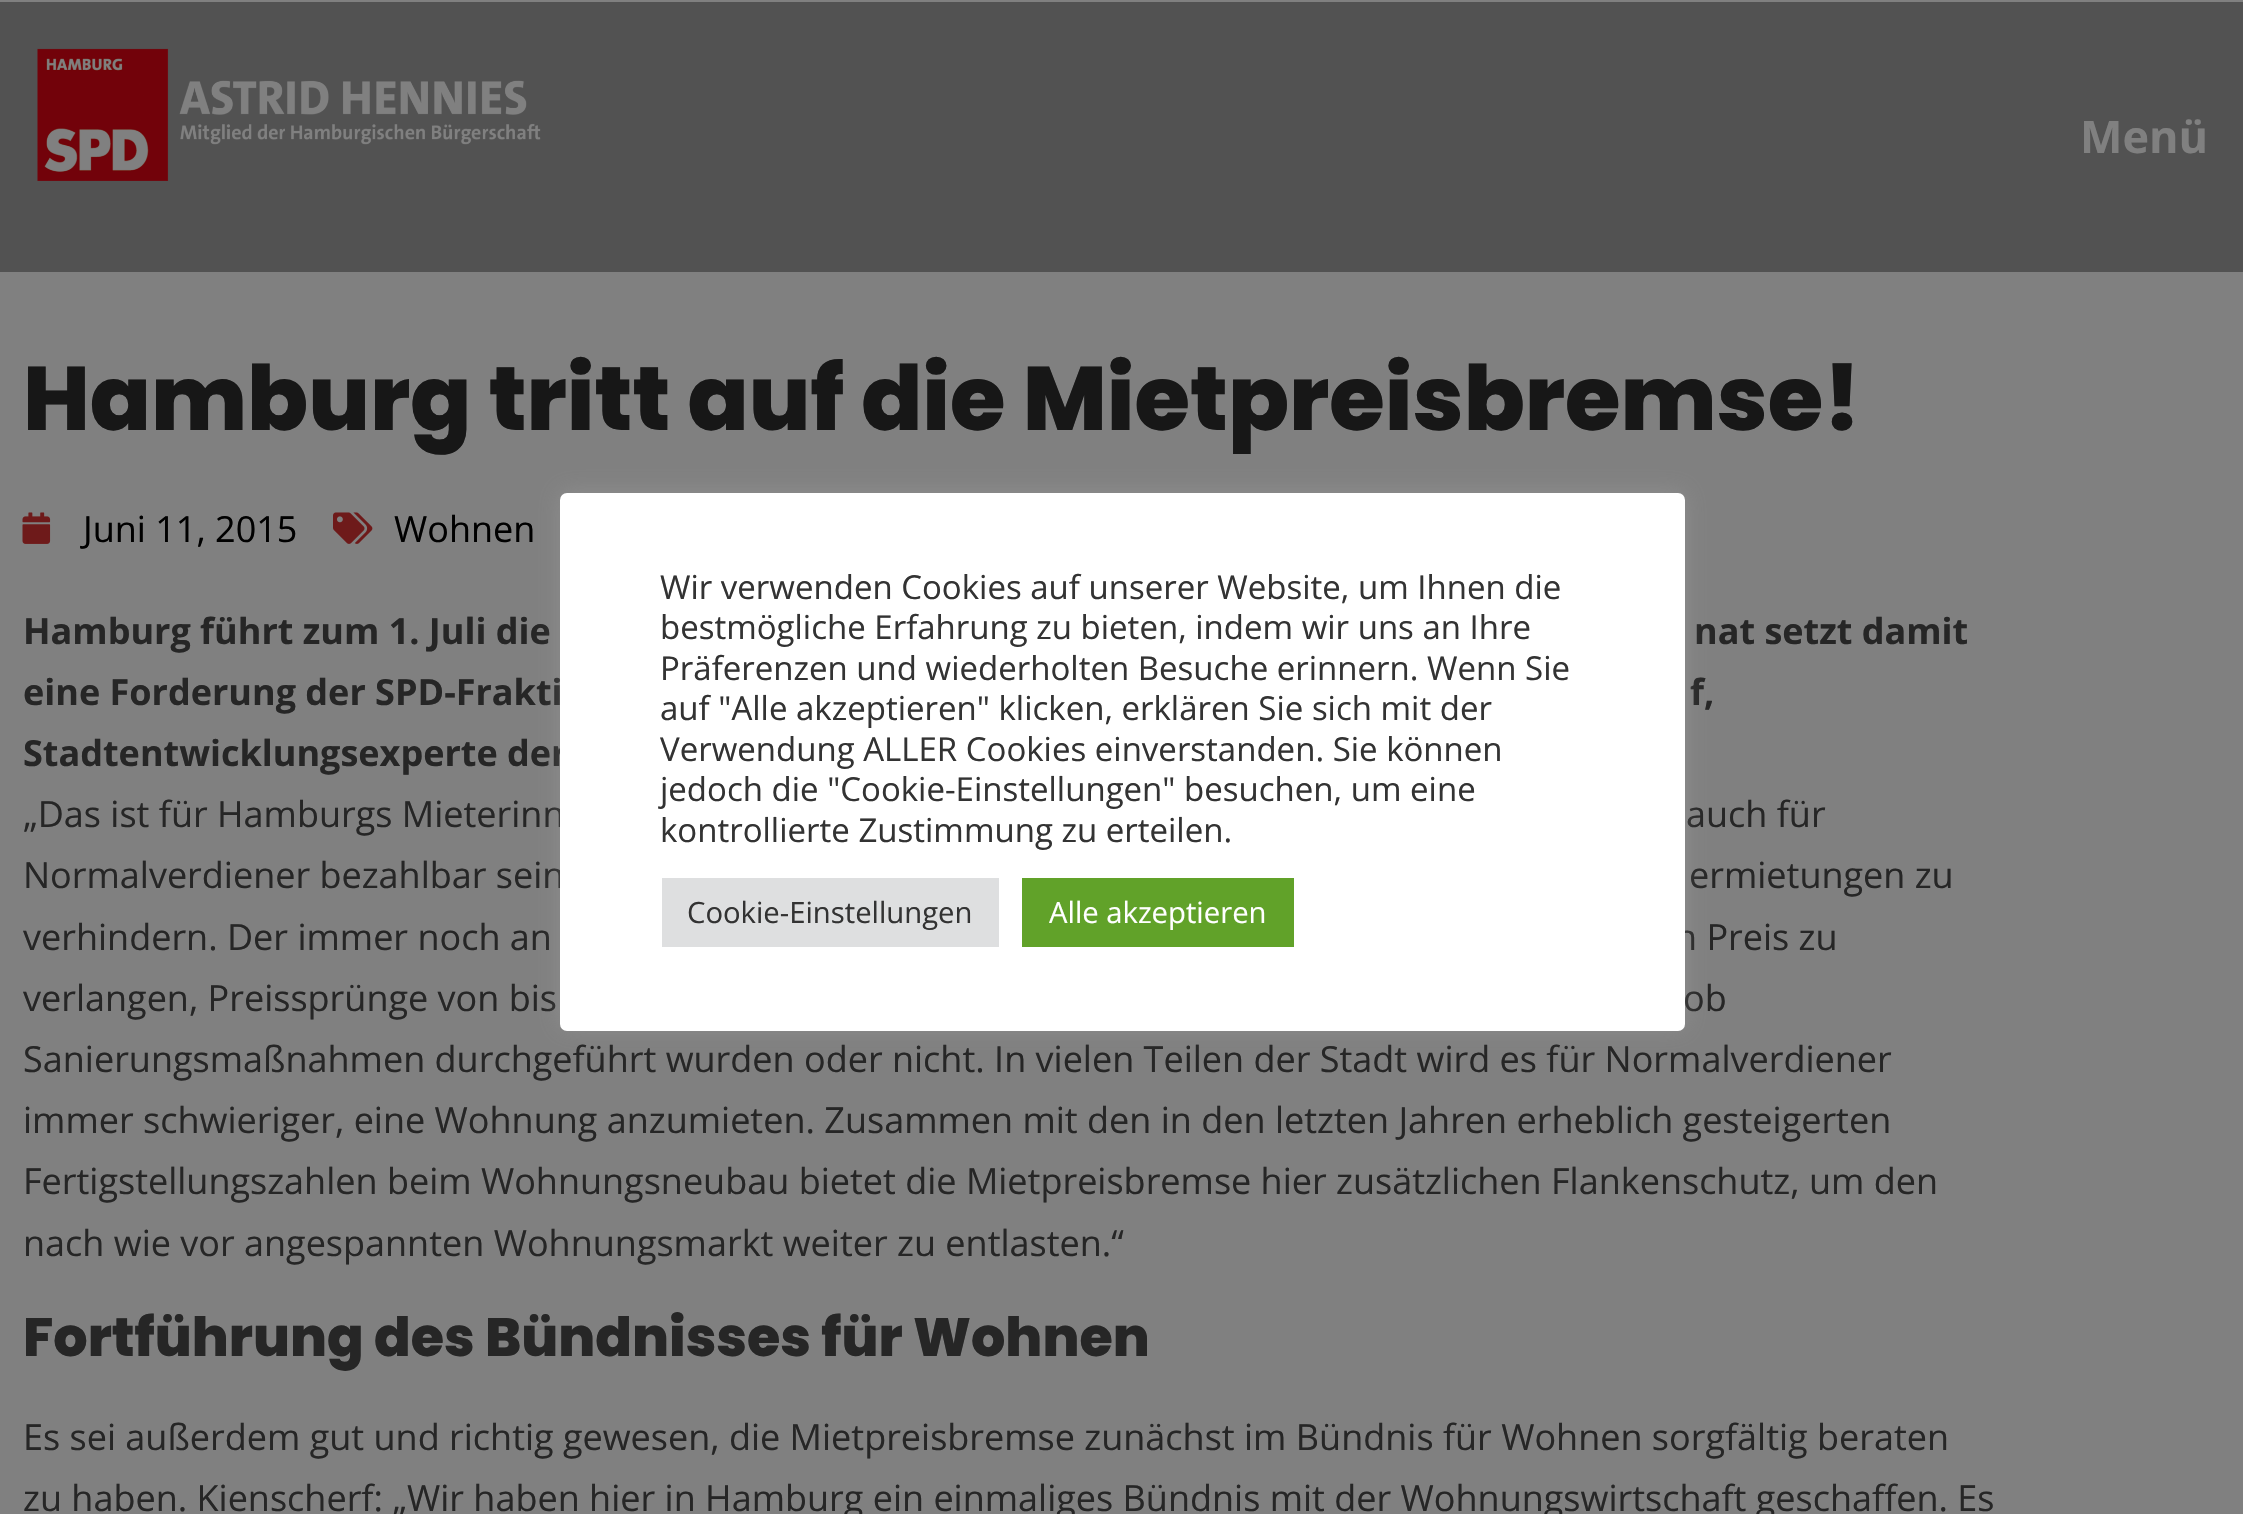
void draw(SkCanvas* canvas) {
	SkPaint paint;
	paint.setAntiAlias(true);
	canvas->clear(0xff808080);
	paint.setColor(0xff525252);
	canvas->drawRect(SkRect::MakeXYWH(0, 2, 2243, 270), paint);
	canvas->drawImageRect(SkImages::DeferredFromEncodedData(SkData::MakeFromFileName("img1.png")), SkRect::MakeXYWH(37, 48, 504, 133), SkSamplingOptions());
	SkFont f1(fontMgr->matchFamilyStyle("Open Sans", SkFontStyle::Bold()), 45);
	f1.setSubpixel(true);
	paint.setColor(0xff808080);
	canvas->drawString("Menü", 2080, 153, f1, paint);
	SkFont f2(fontMgr->matchFamilyStyle("Poppins", SkFontStyle(800, SkFontStyle::kNormal_Width, SkFontStyle::kUpright_Slant)), 90);
	f2.setSubpixel(true);
	paint.setColor(0xff171717);
	canvas->drawString("Hamburg tritt auf die Mietpreisbremse!", 23, 430, f2, paint);
	canvas->drawImageRect(SkImages::DeferredFromEncodedData(SkData::MakeFromFileName("img2.png")), SkRect::MakeXYWH(22, 512, 29, 32), SkSamplingOptions());
	SkFont f3(fontMgr->matchFamilyStyle("Open Sans", SkFontStyle::Normal()), 36);
	f3.setSubpixel(true);
	paint.setColor(0xff000000);
	canvas->drawString("Juni 11, 2015", 83, 542, f3, paint);
	canvas->drawImageRect(SkImages::DeferredFromEncodedData(SkData::MakeFromFileName("img3.png")), SkRect::MakeXYWH(333, 512, 40, 32), SkSamplingOptions());
	canvas->drawString("Wohnen", 394, 542, f3, paint);
	SkFont f4(fontMgr->matchFamilyStyle("Open Sans", SkFontStyle::Bold()), 36);
	f4.setSubpixel(true);
	paint.setColor(0xff262626);
	canvas->drawString("Hamburg führt zum 1. Juli die", 23, 644, f4, paint);
	canvas->drawString("nat setzt damit", 1694, 644, f4, paint);
	canvas->drawString("eine Forderung der SPD-Frakti", 23, 705, f4, paint);
	canvas->drawString("f,", 1690, 705, f4, paint);
	canvas->drawString("Stadtentwicklungsexperte der", 23, 766, f4, paint);
	canvas->drawString("„Das ist für Hamburgs Mieterinn", 23, 827, f3, paint);
	canvas->drawString("auch für", 1686, 827, f3, paint);
	canvas->drawString("Normalverdiener bezahlbar sein", 23, 888, f3, paint);
	canvas->drawString("ermietungen zu", 1689, 888, f3, paint);
	canvas->drawString("verhindern. Der immer noch an", 23, 950, f3, paint);
	canvas->drawString("n Preis zu", 1675, 950, f3, paint);
	canvas->drawString("verlangen, Preissprünge von bis", 23, 1011, f3, paint);
	canvas->drawString("ob", 1683, 1011, f3, paint);
	canvas->drawString("Sanierungsmaßnahmen durchgeführt wurden oder nicht. In vielen Teilen der Stadt wird es für Normalverdiener", 23, 1072, f3, paint);
	canvas->drawString("immer schwieriger, eine Wohnung anzumieten. Zusammen mit den in den letzten Jahren erheblich gesteigerten", 23, 1133, f3, paint);
	canvas->drawString("Fertigstellungszahlen beim Wohnungsneubau bietet die Mietpreisbremse hier zusätzlichen Flankenschutz, um den", 23, 1194, f3, paint);
	canvas->drawString("nach wie vor angespannten Wohnungsmarkt weiter zu entlasten.“", 23, 1256, f3, paint);
	SkFont f5(fontMgr->matchFamilyStyle("Poppins", SkFontStyle(800, SkFontStyle::kNormal_Width, SkFontStyle::kUpright_Slant)), 54);
	f5.setSubpixel(true);
	canvas->drawString("Fortführung des Bündnisses für Wohnen", 23, 1356, f5, paint);
	canvas->drawString("Es sei außerdem gut und richtig gewesen, die Mietpreisbremse zunächst im Bündnis für Wohnen sorgfältig beraten", 23, 1450, f3, paint);
	canvas->drawString("zu haben. Kienscherf: „Wir haben hier in Hamburg ein einmaliges Bündnis mit der Wohnungswirtschaft geschaffen. Es", 23, 1511, f3, paint);
	paint.setColor(0x4dacabab);
	paint.setMaskFilter(SkMaskFilter::MakeBlur(kNormal_SkBlurStyle, 11));
	canvas->drawRoundRect(SkRect::MakeXYWH(560, 491, 1125, 537), 7, 7, paint);
	paint.setMaskFilter(nullptr);
	paint.setColor(0xffffffff);
	canvas->drawRoundRect(SkRect::MakeXYWH(560, 493, 1125, 538), 7, 7, paint);
	SkFont f6(fontMgr->matchFamilyStyle("Open Sans", SkFontStyle::Normal()), 33);
	f6.setSubpixel(true);
	paint.setColor(0xff333333);
	canvas->drawString("Wir verwenden Cookies auf unserer Website, um Ihnen die", 660, 599, f6, paint);
	canvas->drawString("bestmögliche Erfahrung zu bieten, indem wir uns an Ihre", 660, 639, f6, paint);
	canvas->drawString("Präferenzen und wiederholten Besuche erinnern. Wenn Sie", 660, 680, f6, paint);
	canvas->drawString("auf \"Alle akzeptieren\" klicken, erklären Sie sich mit der", 660, 720, f6, paint);
	canvas->drawString("Verwendung ALLER Cookies einverstanden. Sie können", 660, 761, f6, paint);
	canvas->drawString("jedoch die \"Cookie-Einstellungen\" besuchen, um eine", 660, 801, f6, paint);
	canvas->drawString("kontrollierte Zustimmung zu erteilen.", 660, 842, f6, paint);
	paint.setColor(0xffdedfe0);
	canvas->drawRect(SkRect::MakeXYWH(662, 878, 337, 69), paint);
	SkFont f7(fontMgr->matchFamilyStyle("Open Sans", SkFontStyle::Normal()), 29.25);
	f7.setSubpixel(true);
	paint.setColor(0xff333333);
	canvas->drawString("Cookie-Einstellungen", 687, 923, f7, paint);
	paint.setColor(0xff61a229);
	canvas->drawRect(SkRect::MakeXYWH(1022, 878, 272, 69), paint);
	paint.setColor(0xffffffff);
	canvas->drawString("Alle akzeptieren", 1049, 923, f7, paint);
}
